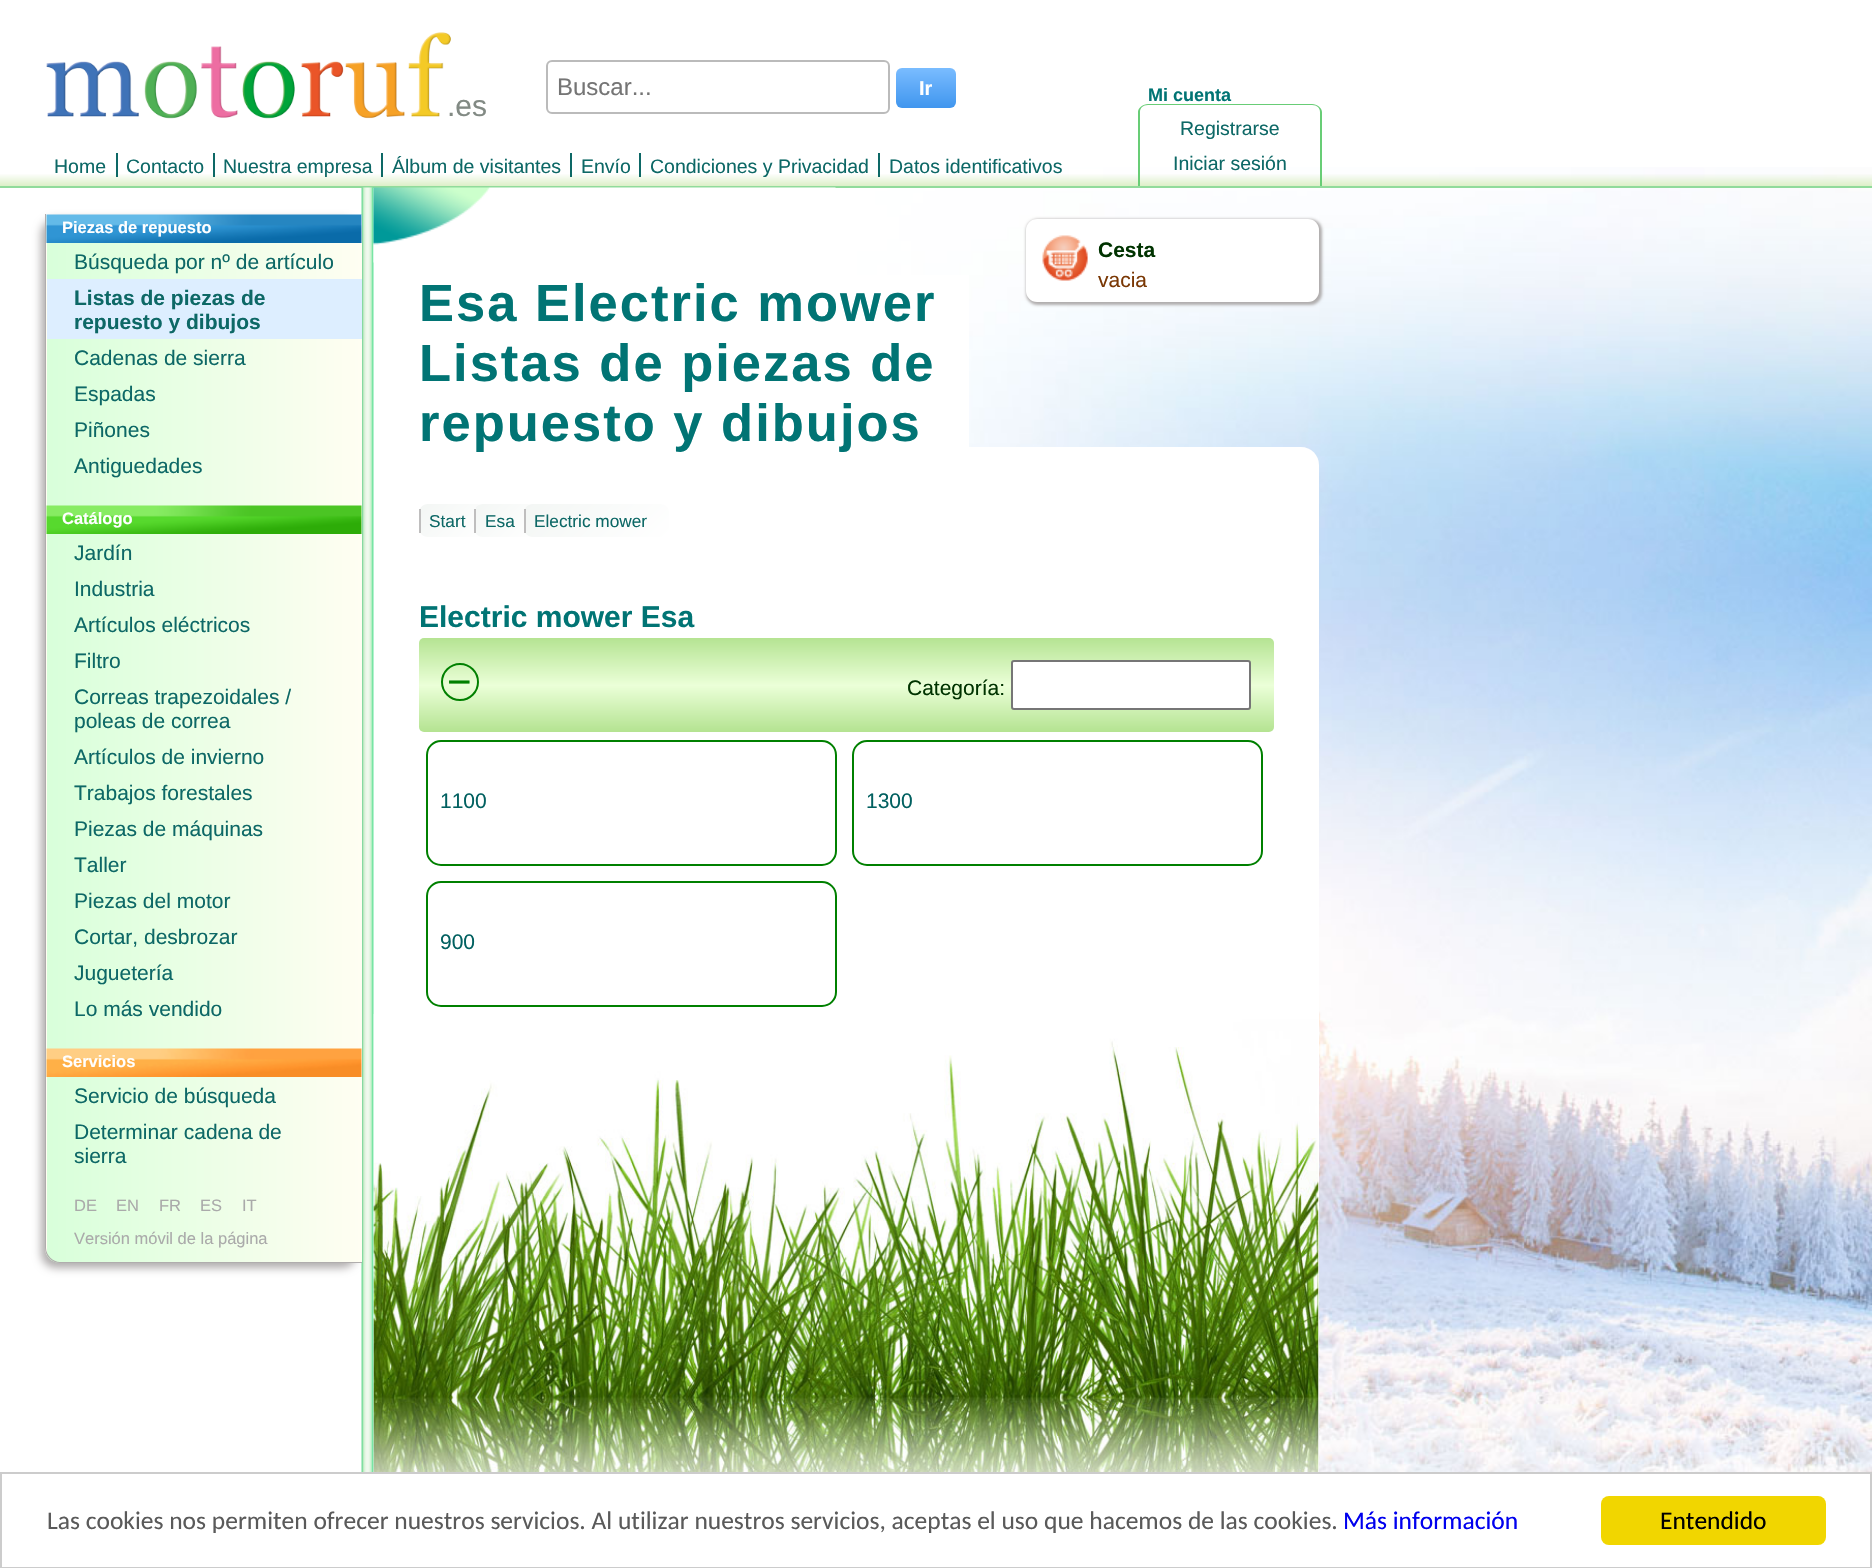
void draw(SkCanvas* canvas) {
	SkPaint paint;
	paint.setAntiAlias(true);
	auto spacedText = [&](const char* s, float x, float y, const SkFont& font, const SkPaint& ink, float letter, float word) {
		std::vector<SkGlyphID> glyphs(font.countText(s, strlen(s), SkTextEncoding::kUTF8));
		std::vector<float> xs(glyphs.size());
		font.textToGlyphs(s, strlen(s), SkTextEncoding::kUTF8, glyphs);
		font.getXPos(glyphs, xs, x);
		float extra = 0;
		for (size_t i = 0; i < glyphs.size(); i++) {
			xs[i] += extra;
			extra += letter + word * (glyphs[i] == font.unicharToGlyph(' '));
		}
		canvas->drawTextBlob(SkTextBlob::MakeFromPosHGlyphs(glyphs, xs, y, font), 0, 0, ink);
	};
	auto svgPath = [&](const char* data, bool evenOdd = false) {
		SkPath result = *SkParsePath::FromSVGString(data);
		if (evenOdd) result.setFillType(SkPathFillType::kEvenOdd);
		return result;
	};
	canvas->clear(0xffffffff);
	canvas->drawImageRect(SkImages::DeferredFromEncodedData(SkData::MakeFromFileName("img1.png")), SkRect::MakeXYWH(857, 167, 1015, 1305), SkSamplingOptions());
	canvas->drawImageRect(SkImages::DeferredFromEncodedData(SkData::MakeFromFileName("img2.png")), SkRect::MakeXYWH(46, 32, 405, 87), SkSamplingOptions());
	SkFont f1(fontMgr->matchFamilyStyle("Liberation Sans", SkFontStyle::Normal()), 30);
	f1.setSubpixel(true);
	paint.setColor(0xff828a84);
	canvas->drawString(".es", 447, 116, f1, paint);
	paint.setStroke(true);
	paint.setStrokeWidth(2);
	paint.setColor(0xffbbbbbb);
	canvas->drawRoundRect(SkRect::MakeXYWH(547, 61, 342, 52), 5, 5, paint);
	SkFont f2(fontMgr->matchFamilyStyle("Liberation Sans", SkFontStyle::Normal()), 24);
	f2.setSubpixel(true);
	paint.setStroke(false);
	paint.setColor(0xff757575);
	canvas->drawString("Buscar...", 557, 95, f2, paint);
	{
		const SkColor colors[] = {0xff7abcff, 0xff60abf8, 0xff4096ee};
		const float stops[] = {0, 0.44, 1};
		const SkPoint ends[] = {{926, 68}, {926, 108}};
		paint.setShader(SkGradientShader::MakeLinear(ends, colors, stops, 3, SkTileMode::kClamp));
		paint.setAlpha(255);
	}
	canvas->drawRoundRect(SkRect::MakeXYWH(896, 68, 60, 40), 6, 6, paint);
	SkFont f3(fontMgr->matchFamilyStyle("Liberation Sans", SkFontStyle::Bold()), 20);
	f3.setSubpixel(true);
	paint.setShader(nullptr);
	paint.setColor(0xffffffff);
	canvas->drawString("Ir", 919, 95, f3, paint);
	SkFont f4(fontMgr->matchFamilyStyle("Liberation Sans", SkFontStyle::Bold()), 18);
	f4.setSubpixel(true);
	paint.setColor(0xff017474);
	canvas->drawString("Mi cuenta", 1148, 101, f4, paint);
	{
		const SkColor colors[] = {0x00dcefc7, 0xffdcefc7};
		const float stops[] = {0.69, 1};
		const SkPoint ends[] = {{936, 145}, {936, 186}};
		paint.setShader(SkGradientShader::MakeLinear(ends, colors, stops, 2, SkTileMode::kClamp));
		paint.setAlpha(255);
	}
	canvas->drawRect(SkRect::MakeXYWH(0, 174, 1872, 12), paint);
	paint.setShader(nullptr);
	paint.setColor(0xff68cd76);
	canvas->drawPath(svgPath("M1148 104H1312C1317 104 1322 108 1322 112V186H1138V112C1138 108 1143 104 1148 104ZM1148 105H1312C1317 105 1320 108 1320 112V186H1140V112C1140 108 1143 105 1148 105Z", true), paint);
	SkFont f5(fontMgr->matchFamilyStyle("Liberation Sans", SkFontStyle::Normal()), 19.5);
	f5.setSubpixel(true);
	paint.setColor(0xff0d6866);
	canvas->drawString("Registrarse", 1180, 135, f5, paint);
	canvas->drawString("Iniciar sesión", 1173, 170, f5, paint);
	paint.setColor(0xba68cd76);
	canvas->drawRect(SkRect::MakeXYWH(0, 186, 1872, 2), paint);
	paint.setColor(0xff0d6866);
	canvas->drawString("Home", 54, 173, f5, paint);
	canvas->drawRect(SkRect::MakeXYWH(116, 153, 2, 24), paint);
	canvas->drawString("Contacto", 126, 173, f5, paint);
	canvas->drawRect(SkRect::MakeXYWH(213, 153, 2, 24), paint);
	canvas->drawString("Nuestra empresa", 223, 173, f5, paint);
	canvas->drawRect(SkRect::MakeXYWH(381, 153, 2, 24), paint);
	canvas->drawString("Álbum de visitantes", 392, 173, f5, paint);
	canvas->drawRect(SkRect::MakeXYWH(570, 153, 2, 24), paint);
	canvas->drawString("Envío", 581, 173, f5, paint);
	canvas->drawRect(SkRect::MakeXYWH(639, 153, 2, 24), paint);
	canvas->drawString("Condiciones y Privacidad", 650, 173, f5, paint);
	canvas->drawRect(SkRect::MakeXYWH(878, 153, 2, 24), paint);
	canvas->drawString("Datos identificativos", 889, 173, f5, paint);
	canvas->drawImageRect(SkImages::DeferredFromEncodedData(SkData::MakeFromFileName("img6.png")), SkRect::MakeXYWH(361, 187, 13, 1285), SkSamplingOptions());
	paint.setColor(0xffb0adad);
	paint.setMaskFilter(SkMaskFilter::MakeBlur(kNormal_SkBlurStyle, 4.5));
	canvas->drawRoundRect(SkRect::MakeXYWH(41, 219, 316, 1049), 15, 15, paint);
	paint.setMaskFilter(nullptr);
	canvas->save();
	canvas->clipPath(svgPath("M45 215H362V1263H60C51.5 1263 45 1256.5 45 1248Z"), true);
	{
		const SkColor colors[] = {0xffd8ffda, 0xfffffef2};
		const float stops[] = {0, 1};
		const SkPoint ends[] = {{-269, 738}, {47, 738}};
		paint.setShader(SkGradientShader::MakeLinear(ends, colors, stops, 2, SkTileMode::kClamp));
		paint.setAlpha(255);
	}
	canvas->drawRect(SkRect::MakeXYWH(45, 215, 2, 1048), paint);
	{
		const SkColor colors[] = {0xffd8ffda, 0xfffffef2};
		const float stops[] = {0, 1};
		const SkPoint ends[] = {{46, 738}, {362, 738}};
		paint.setShader(SkGradientShader::MakeLinear(ends, colors, stops, 2, SkTileMode::kClamp));
		paint.setAlpha(255);
	}
	canvas->drawRect(SkRect::MakeXYWH(47, 215, 315, 1048), paint);
	canvas->restore();
	paint.setShader(nullptr);
	paint.setColor(0xffb0adad);
	canvas->drawPath(svgPath("M45 214H362V1263H60C52 1263 45 1256 45 1248ZM46 214H362V1262H60C53 1262 46 1255 46 1248Z", true), paint);
	canvas->drawImageRect(SkImages::DeferredFromEncodedData(SkData::MakeFromFileName("img3.png")), SkRect::MakeXYWH(46, 214, 316, 29), SkSamplingOptions());
	SkFont f6(fontMgr->matchFamilyStyle("Liberation Sans", SkFontStyle::Bold()), 16.5);
	f6.setSubpixel(true);
	paint.setColor(0xffffffff);
	canvas->drawString("Piezas de repuesto", 62, 233, f6, paint);
	SkFont f7(fontMgr->matchFamilyStyle("Liberation Sans", SkFontStyle::Normal()), 21);
	f7.setSubpixel(true);
	paint.setColor(0xff0d6866);
	canvas->drawString("Búsqueda por nº de artículo", 74, 269, f7, paint);
	paint.setColor(0xffddeeff);
	canvas->drawRect(SkRect::MakeXYWH(47, 279, 315, 60), paint);
	SkFont f8(fontMgr->matchFamilyStyle("Liberation Sans", SkFontStyle::Bold()), 21);
	f8.setSubpixel(true);
	paint.setColor(0xff0d6866);
	canvas->drawString("Listas de piezas de", 74, 305, f8, paint);
	canvas->drawString("repuesto y dibujos", 74, 329, f8, paint);
	canvas->drawString("Cadenas de sierra", 74, 365, f7, paint);
	canvas->drawString("Espadas", 74, 401, f7, paint);
	canvas->drawString("Piñones", 74, 437, f7, paint);
	canvas->drawString("Antiguedades", 74, 473, f7, paint);
	canvas->drawImageRect(SkImages::DeferredFromEncodedData(SkData::MakeFromFileName("img4.png")), SkRect::MakeXYWH(46, 505, 316, 29), SkSamplingOptions());
	paint.setColor(0xffffffff);
	canvas->drawString("Catálogo", 62, 524, f6, paint);
	paint.setColor(0xff0d6866);
	canvas->drawString("Jardín", 74, 560, f7, paint);
	canvas->drawString("Industria", 74, 596, f7, paint);
	canvas->drawString("Artículos eléctricos", 74, 632, f7, paint);
	canvas->drawString("Filtro", 74, 668, f7, paint);
	canvas->drawString("Correas trapezoidales /", 74, 704, f7, paint);
	canvas->drawString("poleas de correa", 74, 728, f7, paint);
	canvas->drawString("Artículos de invierno", 74, 764, f7, paint);
	canvas->drawString("Trabajos forestales", 74, 800, f7, paint);
	canvas->drawString("Piezas de máquinas", 74, 836, f7, paint);
	canvas->drawString("Taller", 74, 872, f7, paint);
	canvas->drawString("Piezas del motor", 74, 908, f7, paint);
	canvas->drawString("Cortar, desbrozar", 74, 944, f7, paint);
	canvas->drawString("Juguetería", 74, 980, f7, paint);
	canvas->drawString("Lo más vendido", 74, 1016, f7, paint);
	canvas->drawImageRect(SkImages::DeferredFromEncodedData(SkData::MakeFromFileName("img5.png")), SkRect::MakeXYWH(46, 1048, 316, 29), SkSamplingOptions());
	paint.setColor(0xffffffff);
	canvas->drawString("Servicios", 62, 1067, f6, paint);
	paint.setColor(0xff0d6866);
	canvas->drawString("Servicio de búsqueda", 74, 1103, f7, paint);
	canvas->drawString("Determinar cadena de", 74, 1139, f7, paint);
	canvas->drawString("sierra", 74, 1163, f7, paint);
	SkFont f9(fontMgr->matchFamilyStyle("Liberation Sans", SkFontStyle::Normal()), 16.5);
	f9.setSubpixel(true);
	paint.setColor(0xffaaaaaa);
	canvas->drawString("DE", 74, 1211, f9, paint);
	canvas->drawString("EN", 116, 1211, f9, paint);
	canvas->drawString("FR", 159, 1211, f9, paint);
	canvas->drawString("ES", 200, 1211, f9, paint);
	canvas->drawString("IT", 242, 1211, f9, paint);
	canvas->drawString("Versión móvil de la página", 74, 1244, f9, paint);
	paint.setColor(0xffffffff);
	canvas->drawRect(SkRect::MakeXYWH(857, 275, 112, 172), paint);
	canvas->drawImageRect(SkImages::DeferredFromEncodedData(SkData::MakeFromFileName("img7.png")), SkRect::MakeXYWH(373, 187, 463, 76), SkSamplingOptions());
	SkFont f10(fontMgr->matchFamilyStyle("Liberation Sans", SkFontStyle::Bold()), 52.5);
	f10.setSubpixel(true);
	paint.setColor(0xff017474);
	spacedText("Esa Electric mower", 419, 321, f10, paint, 2, 0);
	spacedText("Listas de piezas de", 419, 381, f10, paint, 2, 0);
	paint.setColor(0xffffffff);
	canvas->drawPath(svgPath("M374 447H1301C1311 447 1319 455 1319 465V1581H374Z"), paint);
	paint.setColor(0xff017474);
	spacedText("repuesto y dibujos", 419, 441, f10, paint, 2, 0);
	canvas->save();
	canvas->clipPath(svgPath("M428 504H477C482 504 486 508 486 513V528C486 533 482 537 477 537H428C423 537 419 533 419 528V513C419 508 423 504 428 504Z"), true);
	{
		const SkColor colors[] = {0xfff3f6f4, 0xffffffff};
		const float stops[] = {0, 1};
		const SkPoint ends[] = {{428, 496}, {478, 545}};
		paint.setShader(SkGradientShader::MakeLinear(ends, colors, stops, 2, SkTileMode::kClamp));
		paint.setAlpha(255);
	}
	canvas->drawPath(svgPath("M420 504H477C482 504 486 508 486 513V528C486 533 482 537 477 537H420Z"), paint);
	canvas->restore();
	paint.setShader(nullptr);
	paint.setColor(0xffbfbebe);
	canvas->drawRect(SkRect::MakeXYWH(419, 509, 2, 24), paint);
	SkFont f11(fontMgr->matchFamilyStyle("Liberation Sans", SkFontStyle::Normal()), 17.25);
	f11.setSubpixel(true);
	paint.setColor(0xff0d6866);
	canvas->drawString("Start", 429, 527, f11, paint);
	canvas->save();
	canvas->clipPath(svgPath("M483 504H527C532 504 536 508 536 513V528C536 533 532 537 527 537H483C478 537 474 533 474 528V513C474 508 478 504 483 504Z"), true);
	{
		const SkColor colors[] = {0xfff3f6f4, 0xffffffff};
		const float stops[] = {0, 1};
		const SkPoint ends[] = {{482, 497}, {529, 544}};
		paint.setShader(SkGradientShader::MakeLinear(ends, colors, stops, 2, SkTileMode::kClamp));
		paint.setAlpha(255);
	}
	canvas->drawPath(svgPath("M476 504H527C532 504 536 508 536 513V528C536 533 532 537 527 537H476Z"), paint);
	canvas->restore();
	paint.setShader(nullptr);
	paint.setColor(0xffbfbebe);
	canvas->drawRect(SkRect::MakeXYWH(474, 509, 2, 24), paint);
	paint.setColor(0xff0d6866);
	canvas->drawString("Esa", 485, 527, f11, paint);
	canvas->save();
	canvas->clipPath(svgPath("M533 504H660C665 504 669 508 669 513V528C669 533 665 537 660 537H533C528 537 524 533 524 528V513C524 508 528 504 533 504Z"), true);
	{
		const SkColor colors[] = {0xfff3f6f4, 0xffffffff};
		const float stops[] = {0, 1};
		const SkPoint ends[] = {{553, 476}, {641, 565}};
		paint.setShader(SkGradientShader::MakeLinear(ends, colors, stops, 2, SkTileMode::kClamp));
		paint.setAlpha(255);
	}
	canvas->drawPath(svgPath("M525 504H660C665 504 669 508 669 513V528C669 533 665 537 660 537H525Z"), paint);
	canvas->restore();
	paint.setShader(nullptr);
	paint.setColor(0xffbfbebe);
	canvas->drawRect(SkRect::MakeXYWH(524, 509, 2, 24), paint);
	paint.setColor(0xff0d6866);
	canvas->drawString("Electric mower", 534, 527, f11, paint);
	SkFont f12(fontMgr->matchFamilyStyle("Liberation Sans", SkFontStyle::Bold()), 30);
	f12.setSubpixel(true);
	paint.setColor(0xff017474);
	canvas->drawString("Electric mower Esa", 419, 627, f12, paint);
	{
		const SkColor colors[] = {0xffb4e391, 0xffebffd8, 0xffb4e391};
		const float stops[] = {0, 0.51, 1};
		const SkPoint ends[] = {{846, 637}, {846, 732}};
		paint.setShader(SkGradientShader::MakeLinear(ends, colors, stops, 3, SkTileMode::kClamp));
		paint.setAlpha(255);
	}
	canvas->drawRoundRect(SkRect::MakeXYWH(419, 638, 855, 94), 5, 5, paint);
	paint.setStroke(true);
	paint.setShader(nullptr);
	paint.setColor(0xff008000);
	canvas->drawCircle(460, 682, 18, paint);
	SkFont f13(fontMgr->matchFamilyStyle("Liberation Sans", SkFontStyle::Normal()), 42);
	f13.setSubpixel(true);
	paint.setStroke(false);
	canvas->drawString("−", 447, 696, f13, paint);
	paint.setColor(0xff003300);
	canvas->drawString("Categoría:", 907, 695, f7, paint);
	paint.setColor(0xffffffff);
	canvas->drawRoundRect(SkRect::MakeXYWH(1012, 661, 238, 48), 2, 2, paint);
	paint.setStroke(true);
	paint.setColor(0xff767676);
	canvas->drawRoundRect(SkRect::MakeXYWH(1012, 661, 238, 48), 2, 2, paint);
	paint.setColor(0xff008000);
	canvas->drawRoundRect(SkRect::MakeXYWH(427, 741, 409, 124), 14, 14, paint);
	paint.setStroke(false);
	paint.setColor(0xff016060);
	canvas->drawString("1100", 440, 808, f7, paint);
	paint.setStroke(true);
	paint.setColor(0xff008000);
	canvas->drawRoundRect(SkRect::MakeXYWH(853, 741, 409, 124), 14, 14, paint);
	paint.setStroke(false);
	paint.setColor(0xff016060);
	canvas->drawString("1300", 866, 808, f7, paint);
	paint.setStroke(true);
	paint.setColor(0xff008000);
	canvas->drawRoundRect(SkRect::MakeXYWH(427, 882, 409, 124), 14, 14, paint);
	paint.setStroke(false);
	paint.setColor(0xff016060);
	canvas->drawString("900", 440, 949, f7, paint);
	canvas->drawImageRect(SkImages::DeferredFromEncodedData(SkData::MakeFromFileName("img8.png")), SkRect::MakeXYWH(373, 1014, 946, 458), SkSamplingOptions());
	paint.setColor(0xffb0adad);
	paint.setMaskFilter(SkMaskFilter::MakeBlur(kNormal_SkBlurStyle, 1.5));
	canvas->drawRoundRect(SkRect::MakeXYWH(1026, 219, 296, 86), 12, 12, paint);
	paint.setMaskFilter(nullptr);
	paint.setColor(0xffffffff);
	canvas->drawRoundRect(SkRect::MakeXYWH(1026, 219, 293, 83), 11, 11, paint);
	canvas->drawImageRect(SkImages::DeferredFromEncodedData(SkData::MakeFromFileName("img9.png")), SkRect::MakeXYWH(1042, 235, 46, 46), SkSamplingOptions());
	paint.setColor(0xff003300);
	canvas->drawString("Cesta", 1098, 257, f8, paint);
	paint.setColor(0xff7a3805);
	canvas->drawString("vacia", 1098, 287, f7, paint);
	paint.setStroke(true);
	paint.setColor(0xffcccccc);
	canvas->drawRect(SkRect::MakeXYWH(1, 1473, 1870, 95), paint);
	SkFont f14(fontMgr->matchFamilyStyle("Carlito", SkFontStyle::Normal()), 25.5);
	f14.setSubpixel(true);
	paint.setStroke(false);
	paint.setColor(0xff5a5a5a);
	canvas->drawString("Las cookies nos permiten ofrecer nuestros servicios. Al utilizar nuestros servicios, aceptas el uso que hacemos de las cookies.", 47, 1529, f14, paint);
	paint.setColor(0xff0000ee);
	canvas->drawString("Más información", 1343, 1529, f14, paint);
	paint.setColor(0xfff1d600);
	canvas->drawRoundRect(SkRect::MakeXYWH(1601, 1496, 225, 49), 8, 8, paint);
	paint.setColor(0xff000000);
	canvas->drawString("Entendido", 1660, 1529, f14, paint);
}
